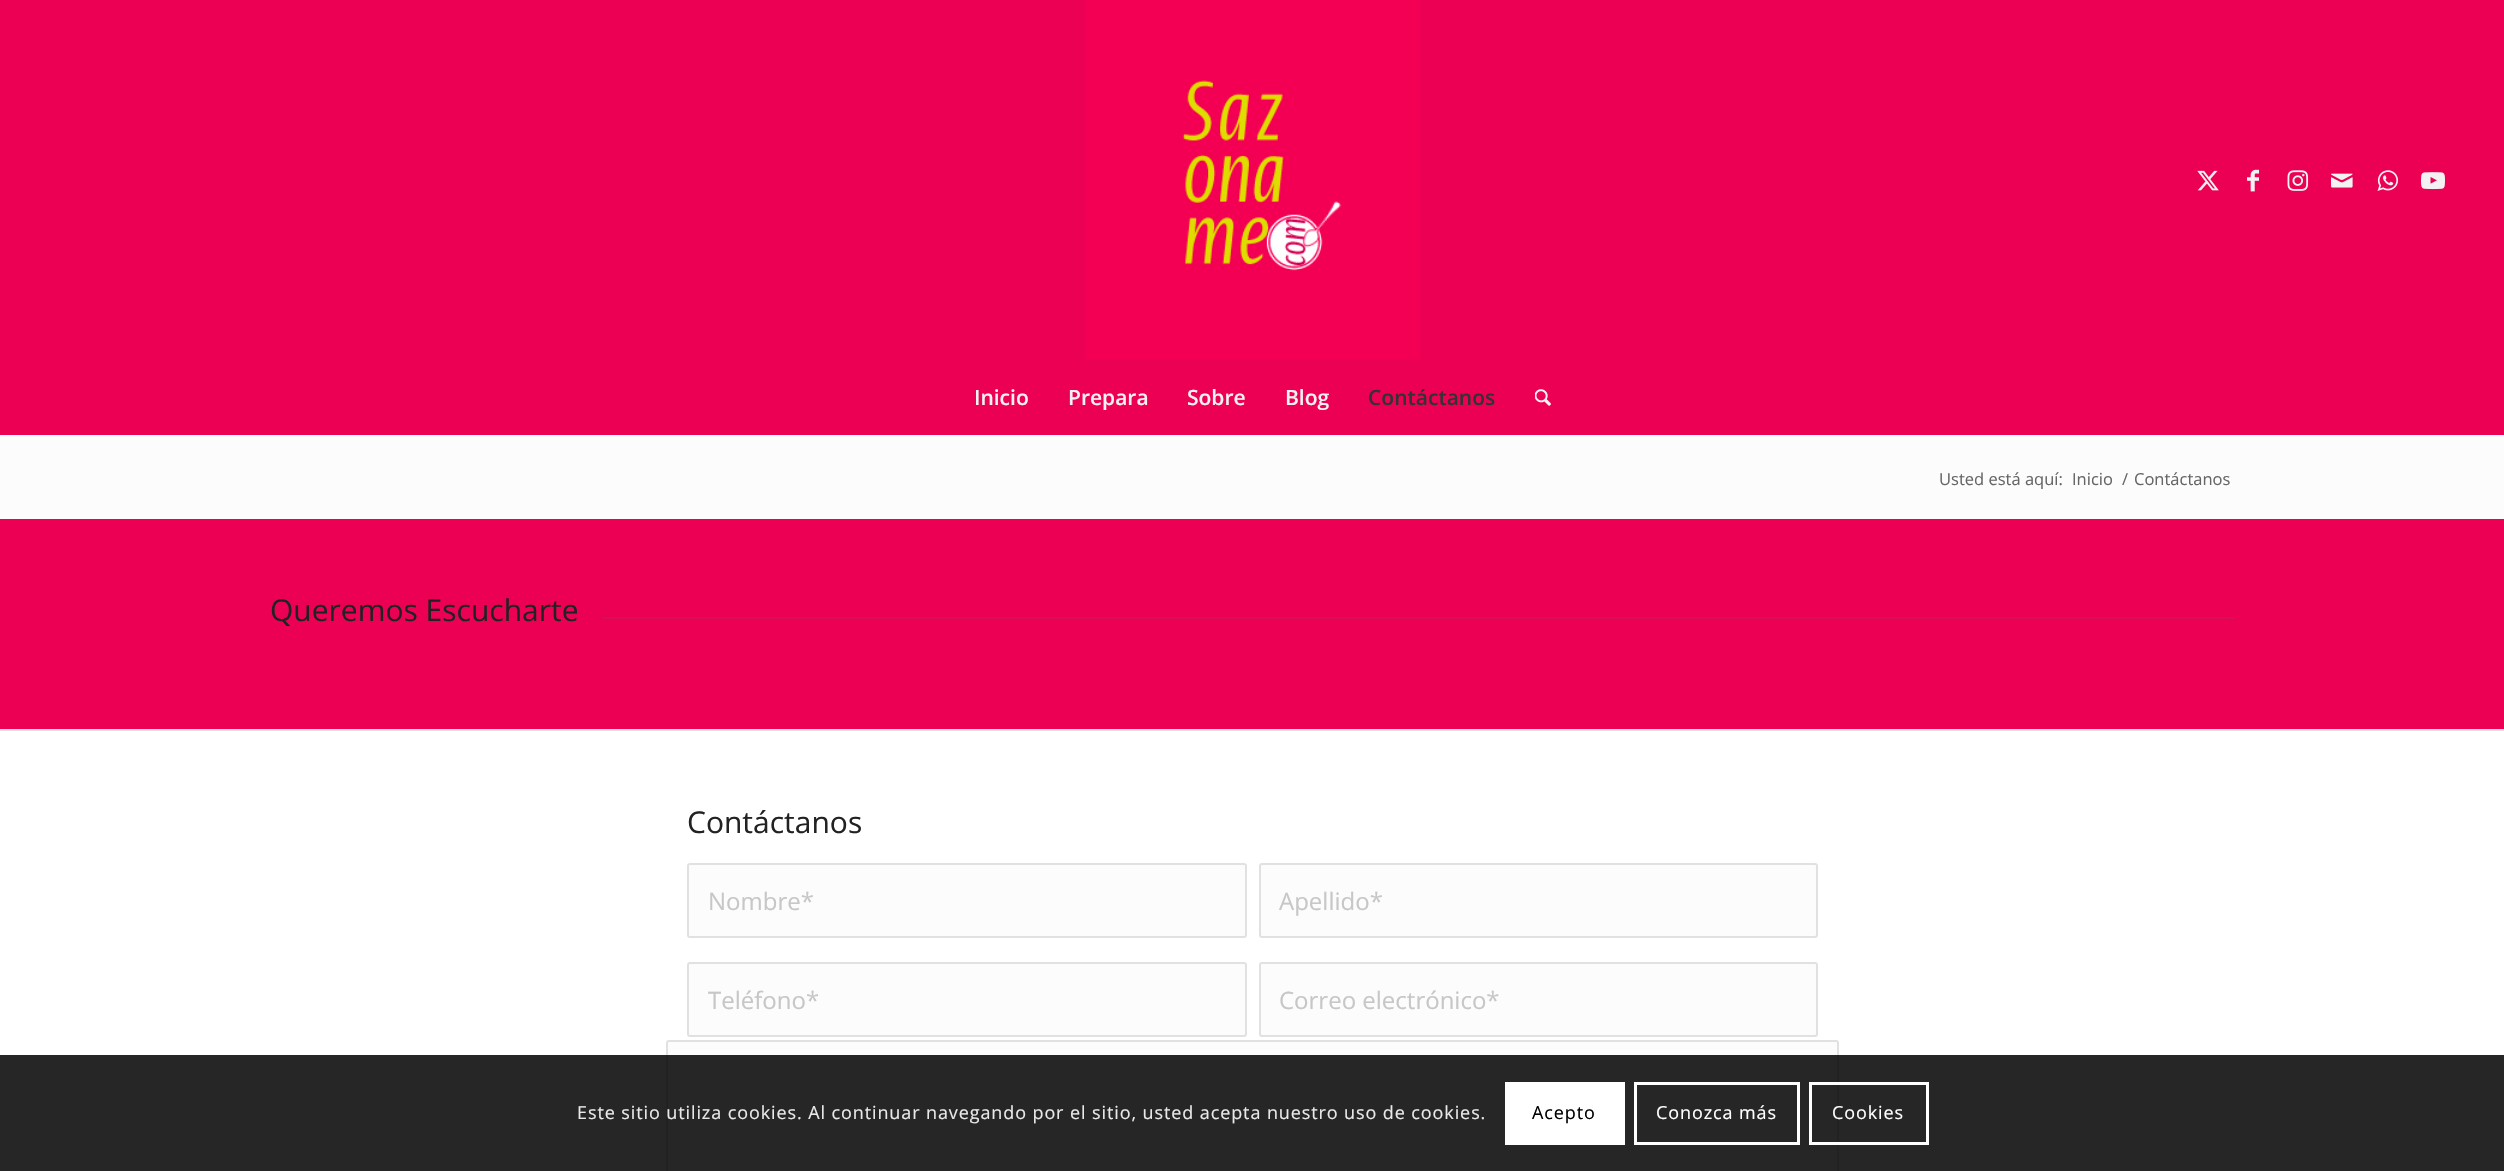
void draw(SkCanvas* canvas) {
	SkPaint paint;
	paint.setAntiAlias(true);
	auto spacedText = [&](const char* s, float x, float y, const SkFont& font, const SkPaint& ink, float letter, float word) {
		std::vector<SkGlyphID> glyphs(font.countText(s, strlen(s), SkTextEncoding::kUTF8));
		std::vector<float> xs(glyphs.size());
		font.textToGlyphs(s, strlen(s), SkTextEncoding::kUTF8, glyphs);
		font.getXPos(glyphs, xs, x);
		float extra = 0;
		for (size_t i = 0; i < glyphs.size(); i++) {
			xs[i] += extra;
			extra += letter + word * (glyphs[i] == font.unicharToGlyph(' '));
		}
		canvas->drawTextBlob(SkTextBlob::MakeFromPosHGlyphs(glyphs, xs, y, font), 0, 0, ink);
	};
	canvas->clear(0xffec0053);
	canvas->drawImageRect(SkImages::DeferredFromEncodedData(SkData::MakeFromFileName("img1.png")), SkRect::MakeXYWH(1085, 0, 335, 360), SkSamplingOptions());
	canvas->drawImageRect(SkImages::DeferredFromEncodedData(SkData::MakeFromFileName("img2.png")), SkRect::MakeXYWH(2197, 170, 22, 21), SkSamplingOptions());
	canvas->drawImageRect(SkImages::DeferredFromEncodedData(SkData::MakeFromFileName("img3.png")), SkRect::MakeXYWH(2247, 169, 12, 23), SkSamplingOptions());
	canvas->drawImageRect(SkImages::DeferredFromEncodedData(SkData::MakeFromFileName("img4.png")), SkRect::MakeXYWH(2287, 170, 22, 21), SkSamplingOptions());
	canvas->drawImageRect(SkImages::DeferredFromEncodedData(SkData::MakeFromFileName("img5.png")), SkRect::MakeXYWH(2331, 173, 22, 15), SkSamplingOptions());
	canvas->drawImageRect(SkImages::DeferredFromEncodedData(SkData::MakeFromFileName("img6.png")), SkRect::MakeXYWH(2377, 170, 22, 21), SkSamplingOptions());
	canvas->drawImageRect(SkImages::DeferredFromEncodedData(SkData::MakeFromFileName("img7.png")), SkRect::MakeXYWH(2421, 172, 24, 18), SkSamplingOptions());
	SkFont f1(fontMgr->matchFamilyStyle("Open Sans", SkFontStyle(600, SkFontStyle::kNormal_Width, SkFontStyle::kUpright_Slant)), 21);
	f1.setSubpixel(true);
	paint.setColor(0xfff2f2f2);
	canvas->drawString("Inicio", 974, 405, f1, paint);
	canvas->drawString("Prepara", 1068, 405, f1, paint);
	canvas->drawString("Sobre", 1187, 405, f1, paint);
	canvas->drawString("Blog", 1285, 405, f1, paint);
	paint.setColor(0xff333333);
	canvas->drawString("Contáctanos", 1368, 405, f1, paint);
	canvas->drawImageRect(SkImages::DeferredFromEncodedData(SkData::MakeFromFileName("img8.png")), SkRect::MakeXYWH(1535, 389, 16, 17), SkSamplingOptions());
	paint.setColor(0xfffcfcfc);
	canvas->drawRect(SkRect::MakeXYWH(0, 435, 2504, 84), paint);
	SkFont f2(fontMgr->matchFamilyStyle("Open Sans", SkFontStyle::Normal()), 16.5);
	f2.setSubpixel(true);
	paint.setColor(0xff666666);
	canvas->drawString("Usted está aquí:", 1939, 485, f2, paint);
	canvas->drawString("Inicio", 2072, 485, f2, paint);
	canvas->drawString("/", 2122, 485, f2, paint);
	canvas->drawString("Contáctanos", 2134, 485, f2, paint);
	SkFont f3(fontMgr->matchFamilyStyle("Open Sans", SkFontStyle::Normal()), 30);
	f3.setSubpixel(true);
	paint.setColor(0xff222222);
	canvas->drawString("Queremos Escucharte", 270, 621, f3, paint);
	paint.setColor(0xffd80f56);
	canvas->drawRect(SkRect::MakeXYWH(602, 617, 1633, 2), paint);
	paint.setColor(0xffffffff);
	canvas->drawRect(SkRect::MakeXYWH(0, 731, 2504, 440), paint);
	paint.setColor(0xffe1e1e1);
	canvas->drawRect(SkRect::MakeXYWH(0, 729, 2504, 2), paint);
	paint.setColor(0xff222222);
	canvas->drawString("Contáctanos", 687, 833, f3, paint);
	paint.setColor(0xfffcfcfc);
	canvas->drawRoundRect(SkRect::MakeXYWH(688, 864, 558, 73), 2, 2, paint);
	paint.setStroke(true);
	paint.setStrokeWidth(2);
	paint.setColor(0xffe1e1e1);
	canvas->drawRoundRect(SkRect::MakeXYWH(688, 864, 558, 73), 2, 2, paint);
	SkFont f4(fontMgr->matchFamilyStyle("Open Sans", SkFontStyle::Normal()), 24);
	f4.setSubpixel(true);
	paint.setStroke(false);
	paint.setColor(0xffc7c7c7);
	canvas->drawString("Nombre*", 708, 910, f4, paint);
	paint.setColor(0xfffcfcfc);
	canvas->drawRoundRect(SkRect::MakeXYWH(1260, 864, 557, 73), 2, 2, paint);
	paint.setStroke(true);
	paint.setColor(0xffe1e1e1);
	canvas->drawRoundRect(SkRect::MakeXYWH(1260, 864, 557, 73), 2, 2, paint);
	paint.setStroke(false);
	paint.setColor(0xffc7c7c7);
	canvas->drawString("Apellido*", 1279, 910, f4, paint);
	paint.setColor(0xfffcfcfc);
	canvas->drawRoundRect(SkRect::MakeXYWH(688, 963, 558, 73), 2, 2, paint);
	paint.setStroke(true);
	paint.setColor(0xffe1e1e1);
	canvas->drawRoundRect(SkRect::MakeXYWH(688, 963, 558, 73), 2, 2, paint);
	paint.setStroke(false);
	paint.setColor(0xffc7c7c7);
	canvas->drawString("Teléfono*", 708, 1009, f4, paint);
	paint.setColor(0xfffcfcfc);
	canvas->drawRoundRect(SkRect::MakeXYWH(1260, 963, 557, 73), 2, 2, paint);
	paint.setStroke(true);
	paint.setColor(0xffe1e1e1);
	canvas->drawRoundRect(SkRect::MakeXYWH(1260, 963, 557, 73), 2, 2, paint);
	paint.setStroke(false);
	paint.setColor(0xffc7c7c7);
	canvas->drawString("Correo electrónico*", 1279, 1009, f4, paint);
	paint.setColor(0xfffcfcfc);
	canvas->drawRoundRect(SkRect::MakeXYWH(667, 1041, 1171, 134), 2, 2, paint);
	paint.setStroke(true);
	paint.setColor(0xffe1e1e1);
	canvas->drawRoundRect(SkRect::MakeXYWH(667, 1041, 1171, 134), 2, 2, paint);
	paint.setStroke(false);
	paint.setColor(0xd9000000);
	canvas->drawRect(SkRect::MakeXYWH(0, 1055, 2504, 116), paint);
	SkFont f5(fontMgr->matchFamilyStyle("Open Sans", SkFontStyle::Normal()), 18);
	f5.setSubpixel(true);
	paint.setColor(0xffe9e9e9);
	spacedText("Este sitio utiliza cookies. Al continuar navegando por el sitio, usted acepta nuestro uso de cookies.", 577, 1119, f5, paint, 0.9, 0);
	paint.setColor(0xffffffff);
	canvas->drawRect(SkRect::MakeXYWH(1505, 1082, 120, 63), paint);
	paint.setColor(0xff000000);
	spacedText("Acepto", 1532, 1119, f5, paint, 0.9, 0);
	paint.setStroke(true);
	paint.setStrokeWidth(3);
	paint.setColor(0xffffffff);
	canvas->drawRect(SkRect::MakeXYWH(1635.5, 1083.5, 163, 60), paint);
	paint.setStroke(false);
	spacedText("Conozca más", 1656, 1119, f5, paint, 0.9, 0);
	paint.setStroke(true);
	canvas->drawRect(SkRect::MakeXYWH(1810.5, 1083.5, 117, 60), paint);
	paint.setStroke(false);
	spacedText("Cookies", 1832, 1119, f5, paint, 0.9, 0);
}
